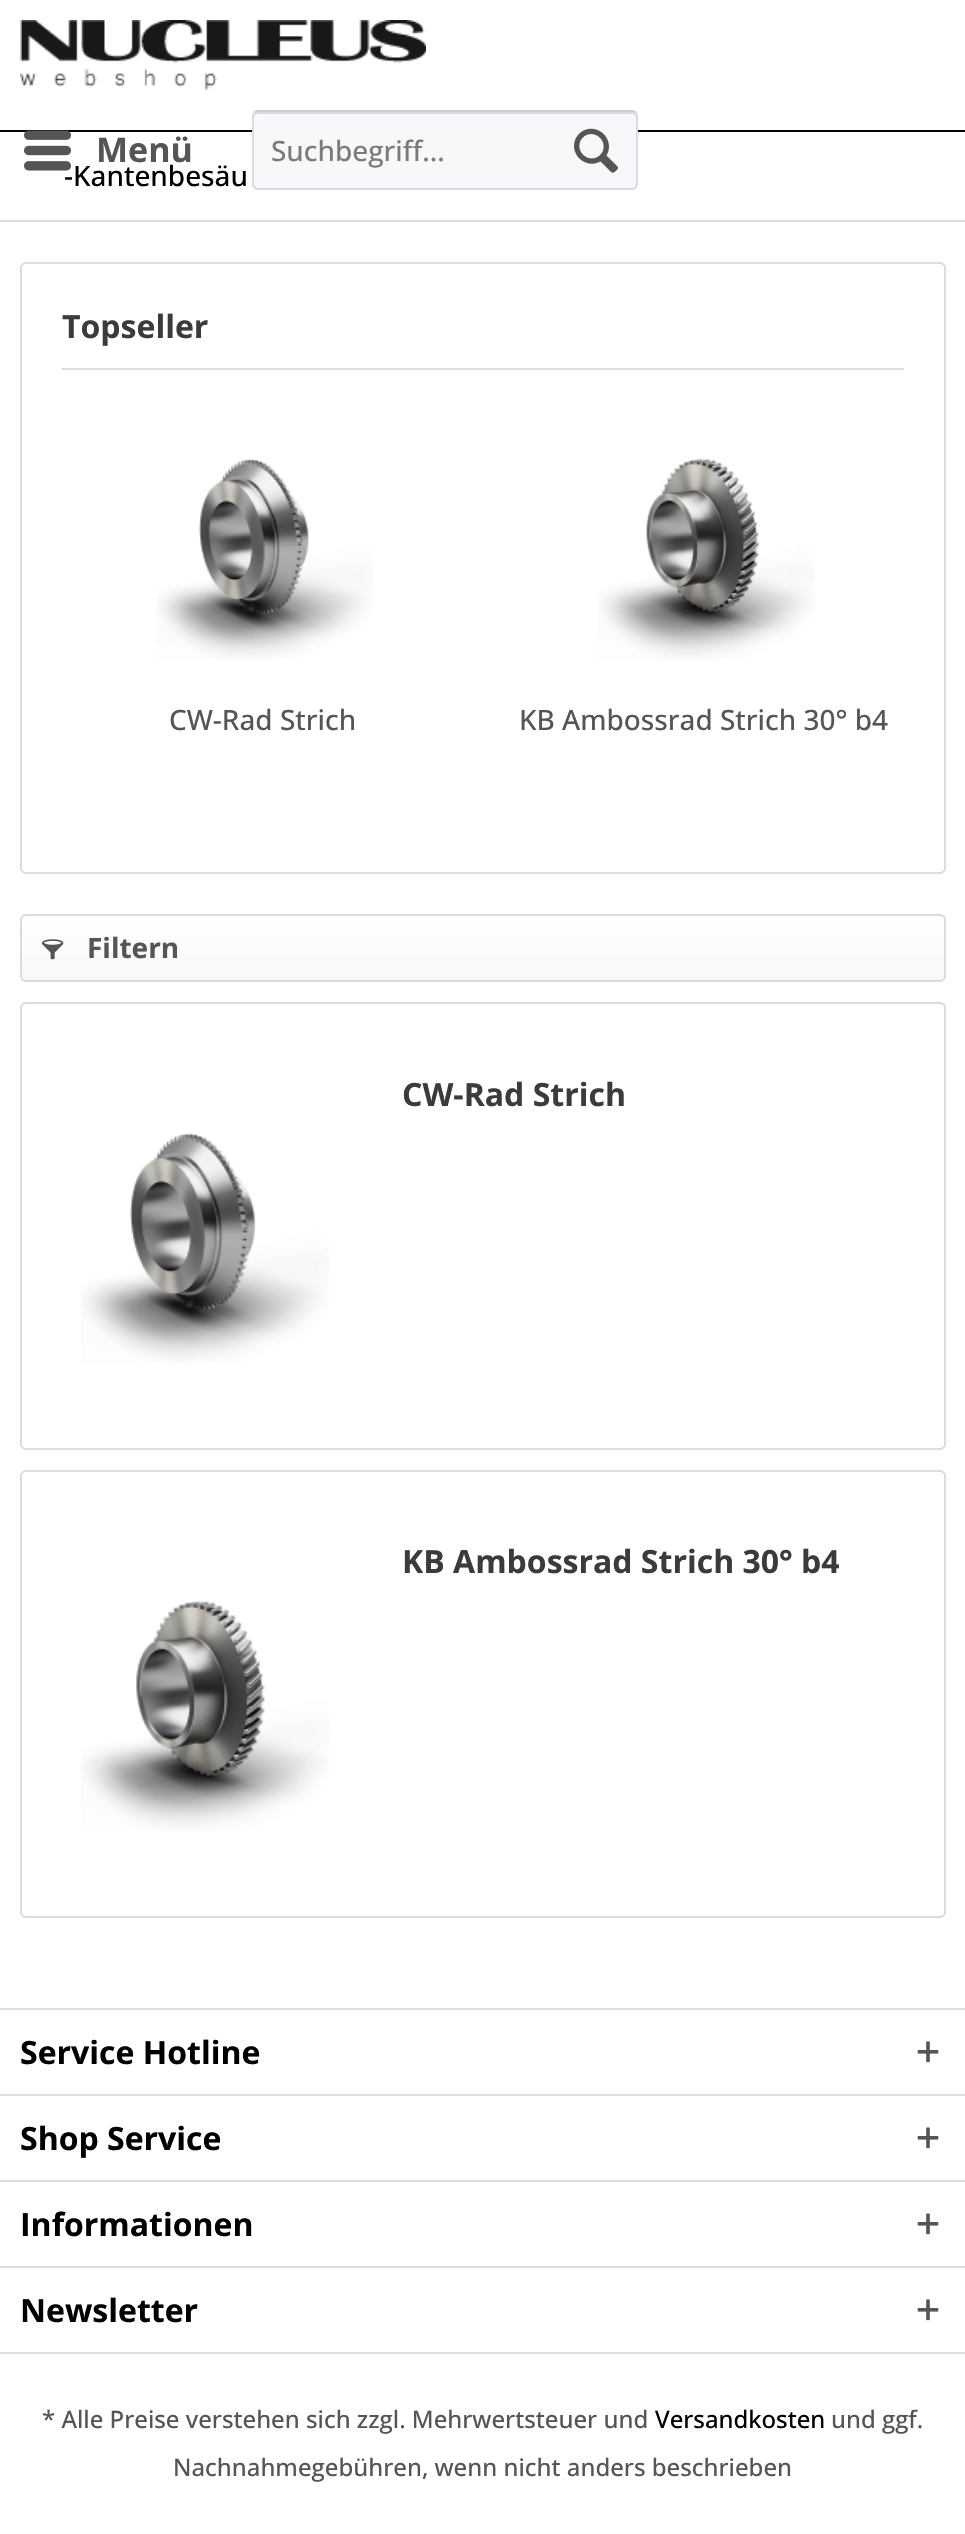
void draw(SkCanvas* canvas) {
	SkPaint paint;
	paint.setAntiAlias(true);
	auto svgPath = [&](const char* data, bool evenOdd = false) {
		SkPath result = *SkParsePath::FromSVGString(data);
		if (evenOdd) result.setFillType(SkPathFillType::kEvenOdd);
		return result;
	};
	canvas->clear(0xffffffff);
	paint.setColor(0xff000000);
	canvas->drawRect(SkRect::MakeXYWH(0, 130, 965, 2), paint);
	canvas->drawImageRect(SkImages::DeferredFromEncodedData(SkData::MakeFromFileName("img1.png")), SkRect::MakeXYWH(20, 20, 406, 70), SkSamplingOptions());
	SkFont f1(fontMgr->matchFamilyStyle("Open Sans", SkFontStyle(500, SkFontStyle::kNormal_Width, SkFontStyle::kUpright_Slant)), 28);
	f1.setSubpixel(true);
	canvas->drawString("-Kantenbesäu", 64, 186, f1, paint);
	canvas->drawImageRect(SkImages::DeferredFromEncodedData(SkData::MakeFromFileName("img2.png")), SkRect::MakeXYWH(24, 130, 47, 41), SkSamplingOptions());
	SkFont f2(fontMgr->matchFamilyStyle("Open Sans", SkFontStyle::Bold()), 34);
	f2.setSubpixel(true);
	paint.setColor(0xff555555);
	canvas->drawString("Menü", 96, 162, f2, paint);
	paint.setColor(0xfff8f8fa);
	canvas->drawRoundRect(SkRect::MakeXYWH(252, 110, 386, 80), 6, 6, paint);
	paint.setColor(0xffdadae5);
	canvas->drawPath(svgPath("M258 114H632C634 114 636 116 636 118V116C636 114 634 112 632 112H258C256 112 254 114 254 116V118C254 116 256 114 258 114Z"), paint);
	paint.setStroke(true);
	paint.setStrokeWidth(2);
	paint.setColor(0xffcbcbdb);
	canvas->drawPath(svgPath("M254.5 112.5C255.5 111.5 256.5 111 258 111H632C633.5 111 634.5 111.5 635.5 112.5"), paint);
	paint.setColor(0xffdadae5);
	canvas->drawPath(svgPath("M635.5 112.5C636.5 113.5 637 114.5 637 116V184C637 185.5 636.5 186.5 635.5 187.5C634.5 188.5 633.5 189 632 189H258C256.5 189 255.5 188.5 254.5 187.5C253.5 186.5 253 185.5 253 184V116C253 114.5 253.5 113.5 254.5 112.5"), paint);
	paint.setStroke(false);
	paint.setColor(0xff7b7b7b);
	canvas->drawString("Suchbegriff...", 271, 161, f1, paint);
	canvas->drawImageRect(SkImages::DeferredFromEncodedData(SkData::MakeFromFileName("img3.png")), SkRect::MakeXYWH(574, 128, 44, 45), SkSamplingOptions());
	paint.setColor(0xffdadae5);
	canvas->drawRect(SkRect::MakeXYWH(0, 220, 965, 2), paint);
	paint.setStroke(true);
	canvas->drawRoundRect(SkRect::MakeXYWH(21, 263, 924, 610), 5, 5, paint);
	paint.setStroke(false);
	canvas->drawRect(SkRect::MakeXYWH(62, 368, 842, 2), paint);
	SkFont f3(fontMgr->matchFamilyStyle("Open Sans", SkFontStyle::Bold()), 32);
	f3.setSubpixel(true);
	paint.setColor(0xff3b3b3b);
	canvas->drawString("Topseller", 62, 338, f3, paint);
	canvas->drawImageRect(SkImages::DeferredFromEncodedData(SkData::MakeFromFileName("img4.png")), SkRect::MakeXYWH(156, 458, 217, 202), SkSamplingOptions());
	paint.setColor(0xff555555);
	canvas->drawString("CW-Rad Strich", 169, 730, f1, paint);
	canvas->drawImageRect(SkImages::DeferredFromEncodedData(SkData::MakeFromFileName("img5.png")), SkRect::MakeXYWH(598, 458, 217, 202), SkSamplingOptions());
	canvas->drawString("KB Ambossrad Strich 30° b4", 519, 730, f1, paint);
	{
		const SkColor colors[] = {0xffffffff, 0xfff8f8fa};
		const float stops[] = {0, 1};
		const SkPoint ends[] = {{483, 916}, {483, 980}};
		paint.setShader(SkGradientShader::MakeLinear(ends, colors, stops, 2, SkTileMode::kClamp));
		paint.setAlpha(255);
	}
	canvas->drawRoundRect(SkRect::MakeXYWH(22, 916, 922, 64), 4, 4, paint);
	paint.setStroke(true);
	paint.setShader(nullptr);
	paint.setColor(0xffdadae5);
	canvas->drawRoundRect(SkRect::MakeXYWH(21, 915, 924, 66), 5, 5, paint);
	canvas->drawImageRect(SkImages::DeferredFromEncodedData(SkData::MakeFromFileName("img6.png")), SkRect::MakeXYWH(42, 939, 22, 21), SkSamplingOptions());
	SkFont f4(fontMgr->matchFamilyStyle("Open Sans", SkFontStyle::Bold()), 28);
	f4.setSubpixel(true);
	paint.setStroke(false);
	paint.setColor(0xff555555);
	canvas->drawString("Filtern", 87, 958, f4, paint);
	paint.setStroke(true);
	paint.setColor(0xffdadae5);
	canvas->drawRoundRect(SkRect::MakeXYWH(21, 1003, 924, 446), 5, 5, paint);
	paint.setStroke(false);
	paint.setColor(0xff3b3b3b);
	canvas->drawString("CW-Rad Strich", 402, 1106, f3, paint);
	canvas->drawImageRect(SkImages::DeferredFromEncodedData(SkData::MakeFromFileName("img7.png")), SkRect::MakeXYWH(81, 1133, 248, 230), SkSamplingOptions());
	paint.setStroke(true);
	paint.setColor(0xffdadae5);
	canvas->drawRoundRect(SkRect::MakeXYWH(21, 1471, 924, 446), 5, 5, paint);
	paint.setStroke(false);
	paint.setColor(0xff3b3b3b);
	canvas->drawString("KB Ambossrad Strich 30° b4", 402, 1573, f3, paint);
	canvas->drawImageRect(SkImages::DeferredFromEncodedData(SkData::MakeFromFileName("img8.png")), SkRect::MakeXYWH(81, 1601, 248, 230), SkSamplingOptions());
	paint.setColor(0xffdadae5);
	canvas->drawRect(SkRect::MakeXYWH(0, 2008, 965, 2), paint);
	paint.setColor(0xff000000);
	canvas->drawString("Service Hotline", 20, 2064, f3, paint);
	canvas->drawImageRect(SkImages::DeferredFromEncodedData(SkData::MakeFromFileName("img9.png")), SkRect::MakeXYWH(917, 2041, 22, 22), SkSamplingOptions());
	paint.setColor(0xffdadae5);
	canvas->drawRect(SkRect::MakeXYWH(0, 2094, 965, 2), paint);
	paint.setColor(0xff000000);
	canvas->drawString("Shop Service", 20, 2150, f3, paint);
	canvas->drawImageRect(SkImages::DeferredFromEncodedData(SkData::MakeFromFileName("img9.png")), SkRect::MakeXYWH(917, 2127, 22, 22), SkSamplingOptions());
	paint.setColor(0xffdadae5);
	canvas->drawRect(SkRect::MakeXYWH(0, 2180, 965, 2), paint);
	paint.setColor(0xff000000);
	canvas->drawString("Informationen", 20, 2236, f3, paint);
	canvas->drawImageRect(SkImages::DeferredFromEncodedData(SkData::MakeFromFileName("img9.png")), SkRect::MakeXYWH(917, 2213, 22, 22), SkSamplingOptions());
	paint.setColor(0xffdadae5);
	canvas->drawRect(SkRect::MakeXYWH(0, 2266, 965, 2), paint);
	canvas->drawRect(SkRect::MakeXYWH(0, 2352, 965, 2), paint);
	paint.setColor(0xff000000);
	canvas->drawString("Newsletter", 20, 2322, f3, paint);
	canvas->drawImageRect(SkImages::DeferredFromEncodedData(SkData::MakeFromFileName("img9.png")), SkRect::MakeXYWH(917, 2299, 22, 22), SkSamplingOptions());
	SkFont f5(fontMgr->matchFamilyStyle("Open Sans", SkFontStyle(500, SkFontStyle::kNormal_Width, SkFontStyle::kUpright_Slant)), 24);
	f5.setSubpixel(true);
	paint.setColor(0xff555555);
	canvas->drawString("* Alle Preise verstehen sich zzgl. Mehrwertsteuer und", 42, 2428, f5, paint);
	paint.setColor(0xff000000);
	canvas->drawString("Versandkosten", 655, 2428, f5, paint);
	paint.setColor(0xff555555);
	canvas->drawString("und ggf.", 831, 2428, f5, paint);
	canvas->drawString("Nachnahmegebühren, wenn nicht anders beschrieben", 173, 2476, f5, paint);
}
